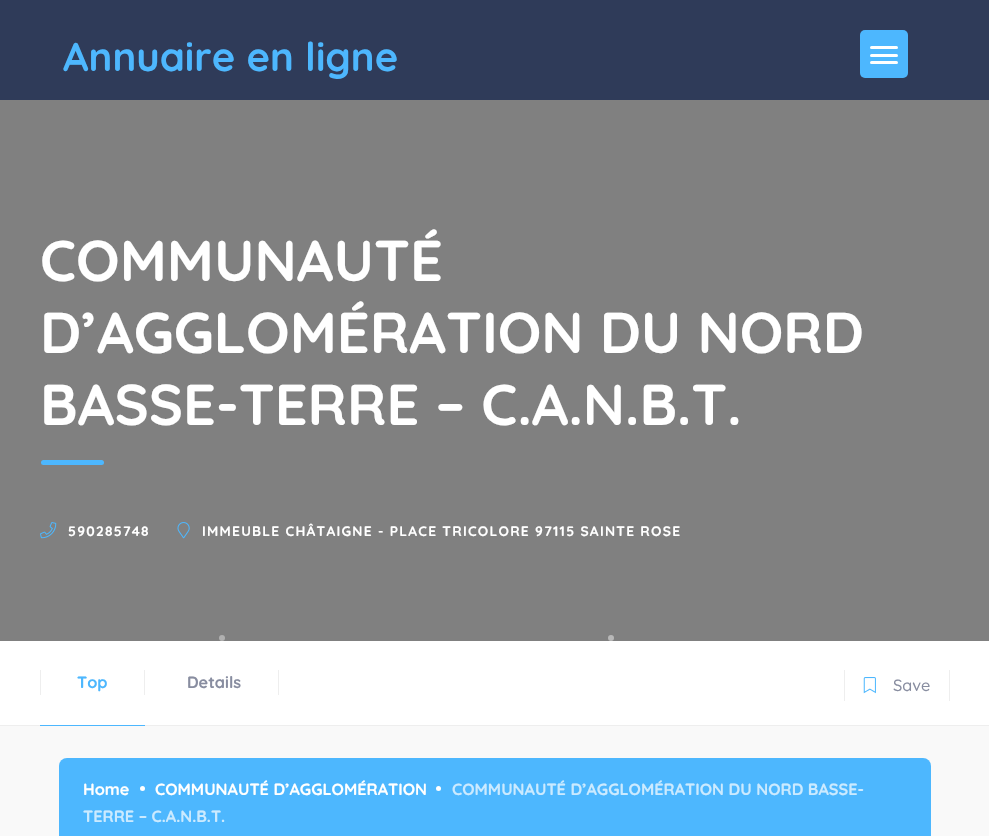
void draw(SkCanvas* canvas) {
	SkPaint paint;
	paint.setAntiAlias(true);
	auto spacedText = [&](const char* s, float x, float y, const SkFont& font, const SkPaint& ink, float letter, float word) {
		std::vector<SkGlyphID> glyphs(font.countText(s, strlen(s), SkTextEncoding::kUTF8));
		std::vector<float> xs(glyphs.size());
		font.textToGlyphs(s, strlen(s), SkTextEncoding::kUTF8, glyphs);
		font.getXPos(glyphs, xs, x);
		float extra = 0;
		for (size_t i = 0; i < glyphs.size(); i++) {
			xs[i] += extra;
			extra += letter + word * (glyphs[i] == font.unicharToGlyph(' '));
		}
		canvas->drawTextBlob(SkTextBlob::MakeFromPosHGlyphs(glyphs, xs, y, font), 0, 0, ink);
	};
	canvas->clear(0xff2f3b59);
	SkFont f1(fontMgr->matchFamilyStyle("Quicksand", SkFontStyle::Bold()), 40);
	f1.setSubpixel(true);
	paint.setColor(0xff4db7fe);
	canvas->drawString("Annuaire en ligne", 63, 71, f1, paint);
	canvas->drawRoundRect(SkRect::MakeXYWH(860, 30, 48, 48), 5, 5, paint);
	paint.setColor(0xffffffff);
	canvas->drawRoundRect(SkRect::MakeXYWH(870, 46, 28, 3), 1.5, 1.5, paint);
	canvas->drawRoundRect(SkRect::MakeXYWH(870, 54, 28, 3), 1.5, 1.5, paint);
	canvas->drawRoundRect(SkRect::MakeXYWH(870, 61, 28, 3), 1.5, 1.5, paint);
	canvas->drawRect(SkRect::MakeXYWH(0, 641, 989, 84), paint);
	paint.setColor(0xff808080);
	canvas->drawRect(SkRect::MakeXYWH(0, 100, 989, 541), paint);
	SkFont f2(fontMgr->matchFamilyStyle("Quicksand", SkFontStyle::Bold()), 57.5);
	f2.setSubpixel(true);
	paint.setColor(0xffffffff);
	canvas->drawString("COMMUNAUTÉ", 40, 281, f2, paint);
	canvas->drawString("D’AGGLOMÉRATION DU NORD", 40, 353, f2, paint);
	canvas->drawString("BASSE-TERRE – C.A.N.B.T.", 40, 425, f2, paint);
	paint.setColor(0xff4db7fe);
	canvas->drawRoundRect(SkRect::MakeXYWH(41, 460, 63, 5), 2.5, 2.5, paint);
	canvas->drawImageRect(SkImages::DeferredFromEncodedData(SkData::MakeFromFileName("img1.png")), SkRect::MakeXYWH(40, 522, 17, 17), SkSamplingOptions());
	SkFont f3(fontMgr->matchFamilyStyle("Quicksand", SkFontStyle::Bold()), 13.75);
	f3.setSubpixel(true);
	paint.setColor(0xffffffff);
	spacedText("590285748", 68, 536, f3, paint, 1.25, 0);
	canvas->drawImageRect(SkImages::DeferredFromEncodedData(SkData::MakeFromFileName("img2.png")), SkRect::MakeXYWH(177, 522, 13, 17), SkSamplingOptions());
	spacedText("IMMEUBLE CHÂTAIGNE - PLACE TRICOLORE 97115 SAINTE ROSE", 202, 536, f3, paint, 1.25, 0);
	paint.setColor(0xffb0b0b0);
	canvas->drawCircle(222, 638, 3, paint);
	paint.setColor(0xffb8b8b8);
	canvas->drawCircle(611, 638, 3, paint);
	paint.setColor(0xffeeeeee);
	canvas->drawRect(SkRect::MakeXYWH(0, 725, 989, 1), paint);
	canvas->drawRect(SkRect::MakeXYWH(40, 670, 1, 25), paint);
	SkFont f4(fontMgr->matchFamilyStyle("Quicksand", SkFontStyle::Bold()), 16.25);
	f4.setSubpixel(true);
	paint.setColor(0xff4db7fe);
	canvas->drawString("Top", 77, 688, f4, paint);
	canvas->drawRect(SkRect::MakeXYWH(40, 725, 105, 1), paint);
	paint.setColor(0xffeeeeee);
	canvas->drawRect(SkRect::MakeXYWH(144, 670, 1, 25), paint);
	paint.setColor(0xff888da0);
	canvas->drawString("Details", 187, 688, f4, paint);
	paint.setColor(0xffeeeeee);
	canvas->drawRect(SkRect::MakeXYWH(278, 670, 1, 25), paint);
	canvas->drawRect(SkRect::MakeXYWH(949, 670, 1, 31), paint);
	canvas->drawRect(SkRect::MakeXYWH(844, 670, 1, 31), paint);
	canvas->drawImageRect(SkImages::DeferredFromEncodedData(SkData::MakeFromFileName("img3.png")), SkRect::MakeXYWH(863, 677, 13, 17), SkSamplingOptions());
	SkFont f5(fontMgr->matchFamilyStyle("Quicksand", SkFontStyle(500, SkFontStyle::kNormal_Width, SkFontStyle::kUpright_Slant)), 16.25);
	f5.setSubpixel(true);
	paint.setColor(0xff888da0);
	canvas->drawString("Save", 893, 691, f5, paint);
	paint.setColor(0xfff9f9f9);
	canvas->drawRect(SkRect::MakeXYWH(0, 726, 989, 110), paint);
	paint.setColor(0xff4db7fe);
	canvas->drawRoundRect(SkRect::MakeXYWH(59, 758, 872, 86), 8, 8, paint);
	paint.setColor(0xffffffff);
	canvas->drawString("Home", 83, 795, f4, paint);
	canvas->drawCircle(142.5, 788.5, 2.5, paint);
	canvas->drawString("COMMUNAUTÉ D’AGGLOMÉRATION", 155, 795, f4, paint);
	canvas->drawCircle(438.5, 788.5, 2.5, paint);
	paint.setColor(0xffcbeaff);
	canvas->drawString("COMMUNAUTÉ D’AGGLOMÉRATION DU NORD BASSE-", 452, 795, f4, paint);
	canvas->drawString("TERRE – C.A.N.B.T.", 83, 822, f4, paint);
}
